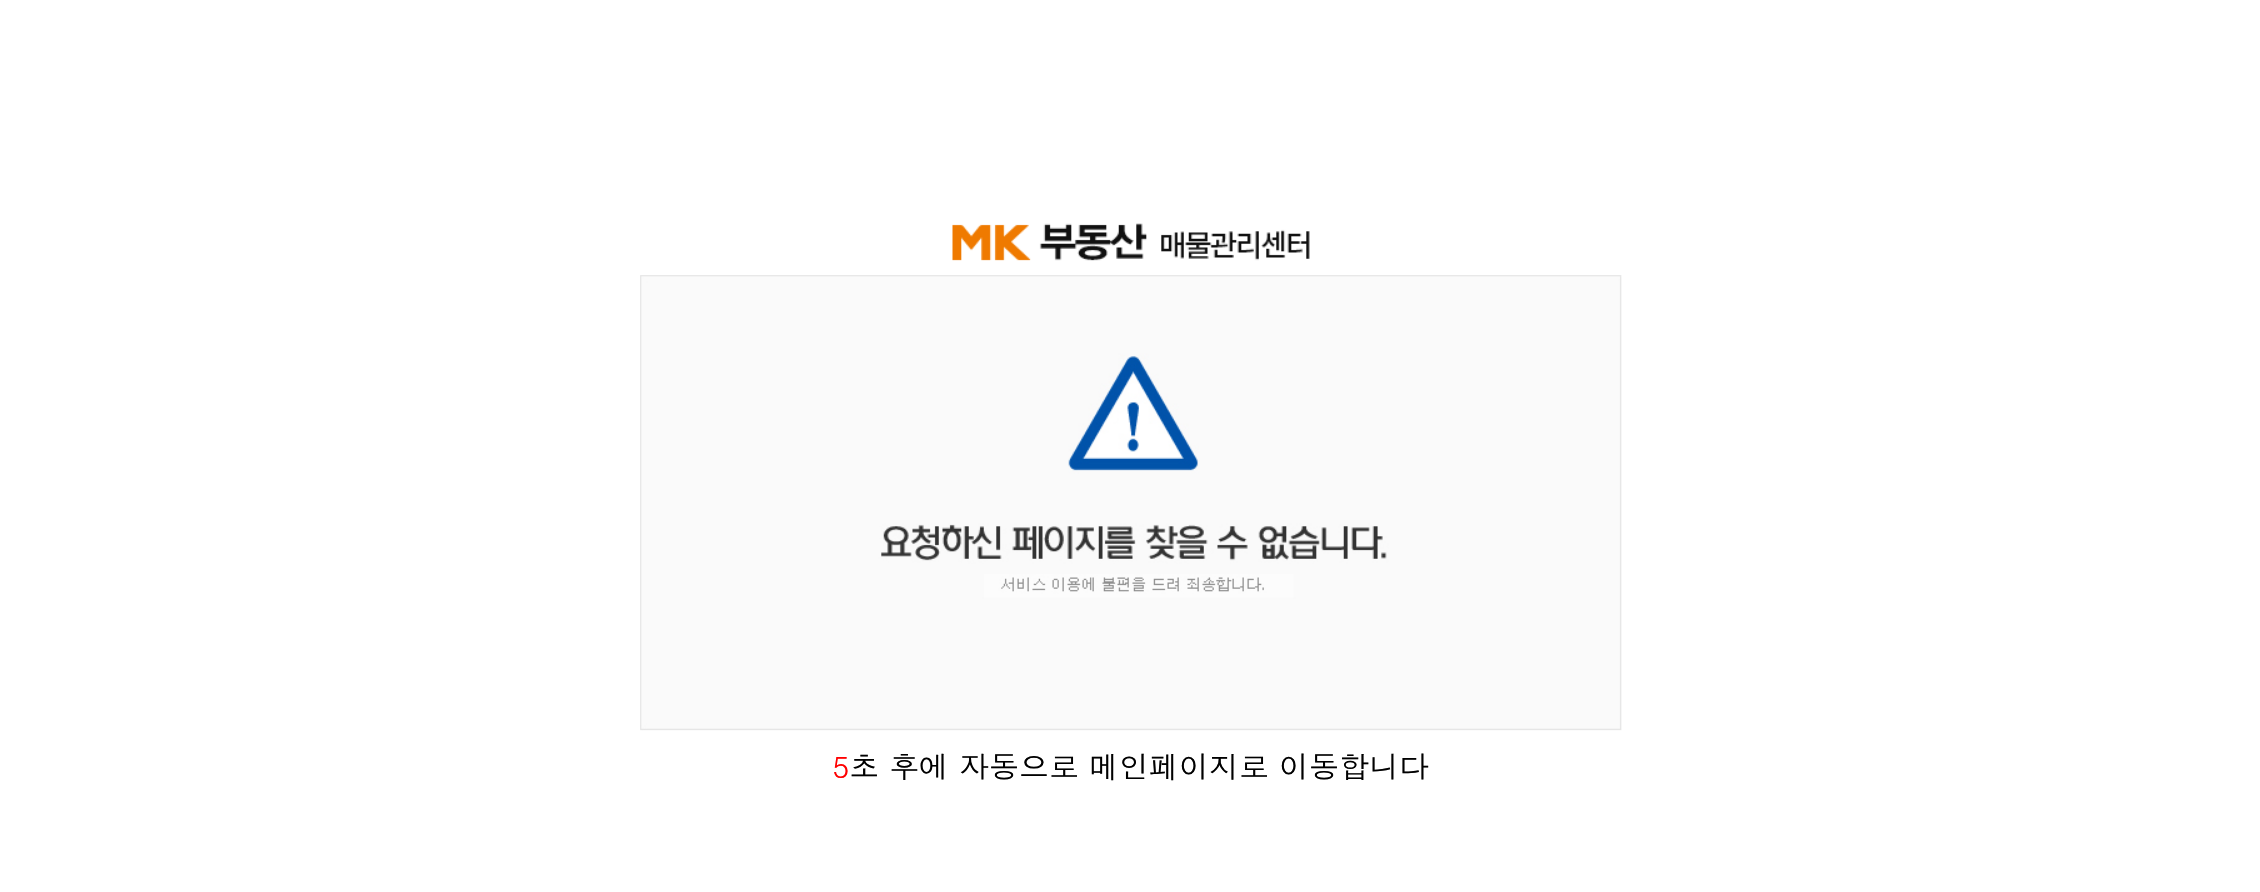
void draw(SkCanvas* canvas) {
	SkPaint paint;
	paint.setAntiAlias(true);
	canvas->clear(0xffffffff);
	canvas->drawImageRect(SkImages::DeferredFromEncodedData(SkData::MakeFromFileName("img1.png")), SkRect::MakeXYWH(952, 223, 358, 38), SkSamplingOptions());
	canvas->drawImageRect(SkImages::DeferredFromEncodedData(SkData::MakeFromFileName("img2.png")), SkRect::MakeXYWH(640, 275, 982, 456), SkSamplingOptions());
	SkFont f1(fontMgr->matchFamilyStyle("Dotum", SkFontStyle::Normal()), 30);
	f1.setSubpixel(true);
	paint.setColor(0xffff0000);
	canvas->drawString("5", 832, 778, f1, paint);
	paint.setColor(0xff000000);
	canvas->drawString("초 후에 자동으로 메인페이지로 이동합니다", 849, 778, f1, paint);
}
